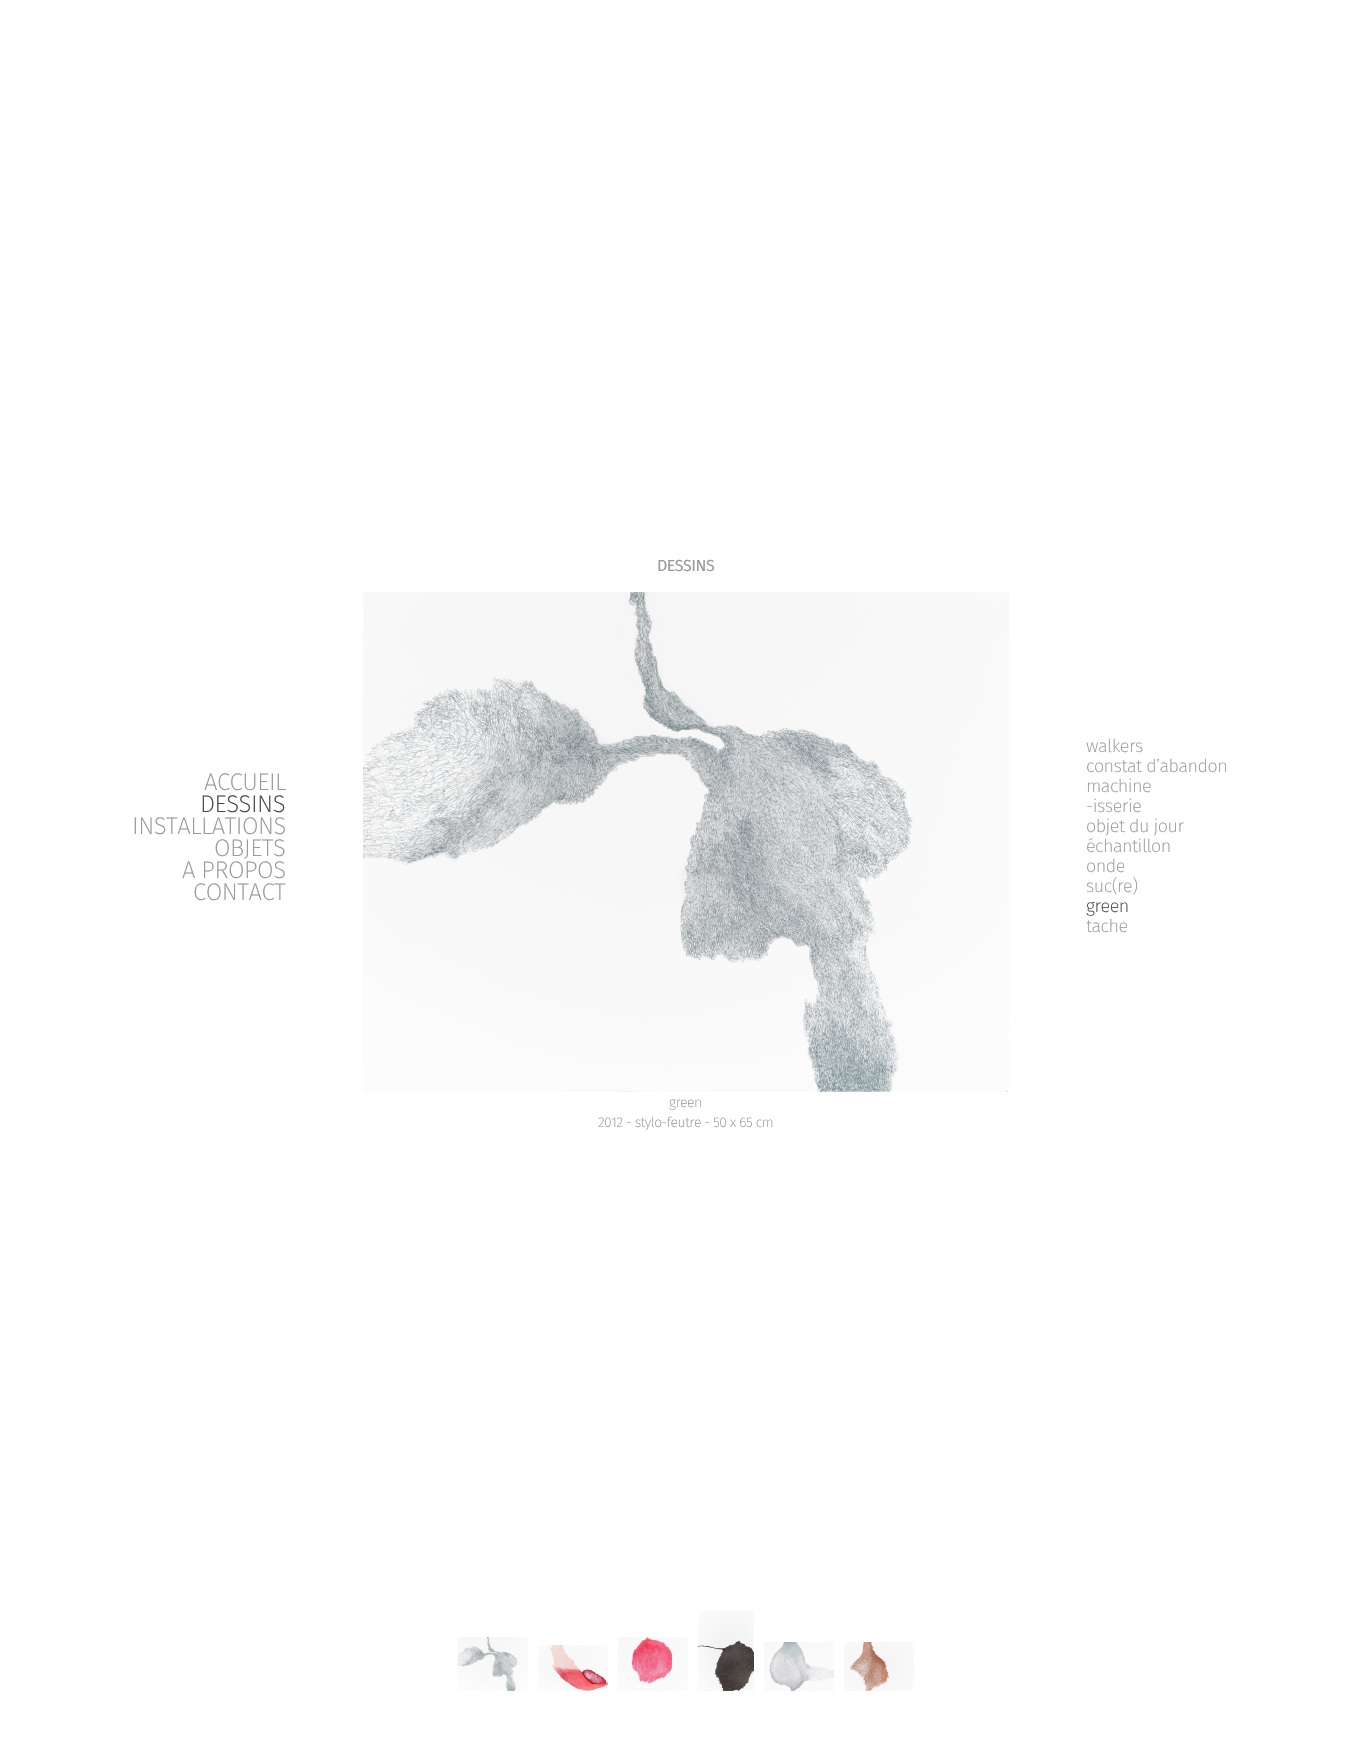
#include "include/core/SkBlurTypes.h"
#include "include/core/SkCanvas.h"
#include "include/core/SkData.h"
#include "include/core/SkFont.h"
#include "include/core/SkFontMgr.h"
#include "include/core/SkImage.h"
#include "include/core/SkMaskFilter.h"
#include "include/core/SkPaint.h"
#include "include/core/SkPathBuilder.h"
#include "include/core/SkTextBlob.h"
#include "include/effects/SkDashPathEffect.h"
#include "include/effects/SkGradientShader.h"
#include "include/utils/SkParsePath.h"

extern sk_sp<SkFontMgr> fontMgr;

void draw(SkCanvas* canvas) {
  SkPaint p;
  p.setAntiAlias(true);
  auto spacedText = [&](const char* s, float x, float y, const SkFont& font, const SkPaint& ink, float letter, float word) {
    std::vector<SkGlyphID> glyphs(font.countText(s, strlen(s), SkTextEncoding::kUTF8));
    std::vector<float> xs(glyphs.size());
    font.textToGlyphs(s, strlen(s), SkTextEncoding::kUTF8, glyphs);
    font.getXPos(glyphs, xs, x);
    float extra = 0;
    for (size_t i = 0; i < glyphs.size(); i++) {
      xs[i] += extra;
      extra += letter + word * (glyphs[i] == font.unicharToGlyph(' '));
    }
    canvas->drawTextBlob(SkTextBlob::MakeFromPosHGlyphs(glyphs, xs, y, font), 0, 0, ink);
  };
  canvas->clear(SK_ColorWHITE);
  canvas->drawImageRect(SkImages::DeferredFromEncodedData(SkData::MakeFromFileName("images/1.png")), SkRect::MakeLTRB(363, 592, 1009, 1092), SkSamplingOptions());
  canvas->drawImageRect(SkImages::DeferredFromEncodedData(SkData::MakeFromFileName("images/2.png")), SkRect::MakeLTRB(458, 1637, 528, 1691), SkSamplingOptions());
  canvas->drawImageRect(SkImages::DeferredFromEncodedData(SkData::MakeFromFileName("images/3.png")), SkRect::MakeLTRB(538, 1645, 608, 1691), SkSamplingOptions());
  canvas->drawImageRect(SkImages::DeferredFromEncodedData(SkData::MakeFromFileName("images/4.png")), SkRect::MakeLTRB(618, 1637, 688, 1691), SkSamplingOptions());
  canvas->drawImageRect(SkImages::DeferredFromEncodedData(SkData::MakeFromFileName("images/5.png")), SkRect::MakeLTRB(698, 1611, 754, 1691), SkSamplingOptions());
  canvas->drawImageRect(SkImages::DeferredFromEncodedData(SkData::MakeFromFileName("images/6.png")), SkRect::MakeLTRB(764, 1642, 834, 1691), SkSamplingOptions());
  canvas->drawImageRect(SkImages::DeferredFromEncodedData(SkData::MakeFromFileName("images/7.png")), SkRect::MakeLTRB(844, 1642, 914, 1691), SkSamplingOptions());
  SkFont font1(fontMgr->matchFamilyStyle("Fira Sans", SkFontStyle(200, SkFontStyle::kNormal_Width, SkFontStyle::kUpright_Slant)), 24);
  font1.setSubpixel(true);
  p.setColor(SkColorSetRGB(153, 153, 153));
  spacedText("ACCUEIL", 204, 790, font1, p, -0.5f, 0);
  p.setColor(SkColorSetRGB(68, 68, 68));
  spacedText("DESSINS", 200, 812, font1, p, -0.5f, 0);
  p.setColor(SkColorSetRGB(153, 153, 153));
  spacedText("INSTALLATIONS", 132, 834, font1, p, -0.5f, 0);
  spacedText("OBJETS", 214, 856, font1, p, -0.5f, 0);
  spacedText("A PROPOS", 182, 878, font1, p, -0.5f, 0);
  spacedText("CONTACT", 193, 900, font1, p, -0.5f, 0);
  SkFont font2(fontMgr->matchFamilyStyle("Fira Sans", SkFontStyle::Normal()), 16);
  font2.setSubpixel(true);
  spacedText("DESSINS", 657, 571, font2, p, -0.5f, 0);
  SkFont font3(fontMgr->matchFamilyStyle("Fira Sans", SkFontStyle(200, SkFontStyle::kNormal_Width, SkFontStyle::kUpright_Slant)), 14);
  font3.setSubpixel(true);
  spacedText("green", 669, 1107, font3, p, -0.5f, 0);
  spacedText("2012 - stylo-feutre - 50 x 65 cm", 598, 1127, font3, p, -0.5f, 0);
  SkFont font4(fontMgr->matchFamilyStyle("Fira Sans", SkFontStyle(200, SkFontStyle::kNormal_Width, SkFontStyle::kUpright_Slant)), 18);
  font4.setSubpixel(true);
  spacedText("walkers", 1086, 752, font4, p, -0.5f, 0);
  spacedText("constat d’abandon", 1086, 772, font4, p, -0.5f, 0);
  spacedText("machine", 1086, 792, font4, p, -0.5f, 0);
  spacedText("-isserie", 1086, 812, font4, p, -0.5f, 0);
  spacedText("objet du jour", 1086, 832, font4, p, -0.5f, 0);
  spacedText("échantillon", 1086, 852, font4, p, -0.5f, 0);
  spacedText("onde", 1086, 872, font4, p, -0.5f, 0);
  spacedText("suc(re)", 1086, 892, font4, p, -0.5f, 0);
  p.setColor(SkColorSetRGB(68, 68, 68));
  spacedText("green", 1086, 912, font4, p, -0.5f, 0);
  p.setColor(SkColorSetRGB(153, 153, 153));
  spacedText("tache", 1086, 932, font4, p, -0.5f, 0);
}
